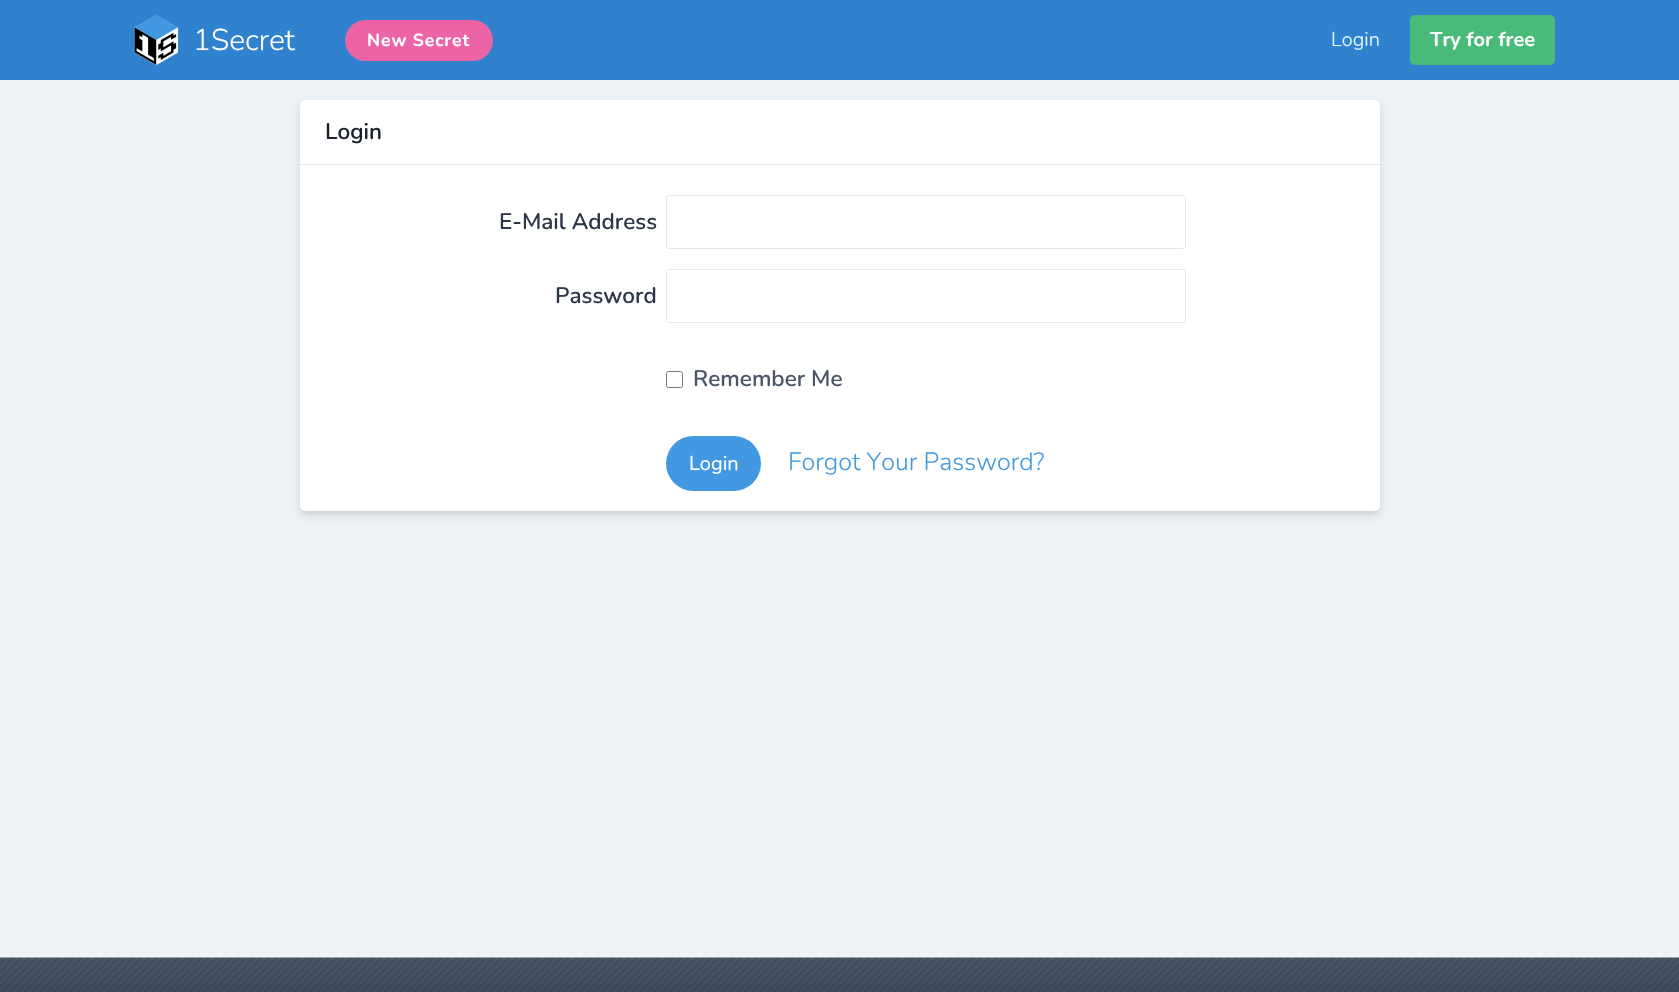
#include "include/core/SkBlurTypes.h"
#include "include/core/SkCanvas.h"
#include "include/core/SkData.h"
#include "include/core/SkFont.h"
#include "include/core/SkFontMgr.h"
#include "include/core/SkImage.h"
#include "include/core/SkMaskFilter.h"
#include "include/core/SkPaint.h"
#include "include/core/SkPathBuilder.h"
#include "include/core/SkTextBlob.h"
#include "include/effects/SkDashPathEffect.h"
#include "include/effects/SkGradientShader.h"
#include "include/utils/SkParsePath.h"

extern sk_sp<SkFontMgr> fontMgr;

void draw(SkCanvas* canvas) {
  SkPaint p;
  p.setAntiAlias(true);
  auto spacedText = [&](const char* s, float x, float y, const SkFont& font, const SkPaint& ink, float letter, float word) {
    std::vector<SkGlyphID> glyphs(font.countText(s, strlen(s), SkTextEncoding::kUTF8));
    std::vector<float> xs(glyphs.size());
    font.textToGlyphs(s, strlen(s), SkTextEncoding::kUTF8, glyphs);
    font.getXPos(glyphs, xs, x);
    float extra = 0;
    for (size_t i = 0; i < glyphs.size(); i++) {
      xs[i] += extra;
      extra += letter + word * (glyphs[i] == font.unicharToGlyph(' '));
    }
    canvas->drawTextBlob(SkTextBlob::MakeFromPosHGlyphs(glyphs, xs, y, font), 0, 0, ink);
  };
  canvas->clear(SkColorSetRGB(237, 242, 247));
  p.setColor(SkColorSetRGB(49, 130, 206));
  canvas->drawRect(SkRect::MakeLTRB(0, 0, 1679, 80), p);
  canvas->drawImageRect(SkImages::DeferredFromEncodedData(SkData::MakeFromFileName("images/1.png")), SkRect::MakeLTRB(134, 14, 179, 66), SkSamplingOptions());
  p.setColor(SkColorSetRGB(237, 100, 166));
  canvas->drawRoundRect(SkRect::MakeLTRB(345, 20, 493, 61), 20.5f, 20.5f, p);
  p.setColor(SkColorSetRGB(72, 187, 120));
  canvas->drawRoundRect(SkRect::MakeLTRB(1410, 15, 1555, 65), 5, 5, p);
  p.setColor(SkColorSetARGB(15, 0, 0, 0));
  p.setMaskFilter(SkMaskFilter::MakeBlur(kNormal_SkBlurStyle, 2.5f));
  canvas->drawRoundRect(SkRect::MakeLTRB(301, 104, 1379, 513), 4, 4, p);
  p.setMaskFilter(nullptr);
  p.setColor(SkColorSetARGB(26, 0, 0, 0));
  p.setMaskFilter(SkMaskFilter::MakeBlur(kNormal_SkBlurStyle, 4));
  canvas->drawRoundRect(SkRect::MakeLTRB(301, 106, 1379, 515), 4, 4, p);
  p.setMaskFilter(nullptr);
  p.setColor(SK_ColorWHITE);
  canvas->drawRoundRect(SkRect::MakeLTRB(300, 100, 1380, 511), 5, 5, p);
  p.setColor(SkColorSetRGB(226, 232, 240));
  canvas->drawRect(SkRect::MakeLTRB(300, 164, 1380, 165), p);
  p.setStyle(SkPaint::kStroke_Style);
  p.setStrokeWidth(1);
  canvas->drawRoundRect(SkRect::MakeLTRB(666.5f, 195.5f, 1185.5f, 248.5f), 2, 2, p);
  canvas->drawRoundRect(SkRect::MakeLTRB(666.5f, 269.5f, 1185.5f, 322.5f), 2, 2, p);
  p.setColor(SkColorSetRGB(118, 118, 118));
  canvas->drawRoundRect(SkRect::MakeLTRB(666.5f, 371.5f, 682.5f, 387.5f), 2, 2, p);
  p.setStyle(SkPaint::kFill_Style);
  p.setColor(SkColorSetRGB(66, 153, 225));
  canvas->drawRoundRect(SkRect::MakeLTRB(666, 436, 761, 491), 27.5f, 27.5f, p);
  canvas->drawImageRect(SkImages::DeferredFromEncodedData(SkData::MakeFromFileName("images/2.png")), SkRect::MakeLTRB(0, 957, 1679, 992), SkSamplingOptions());
  SkFont font1(fontMgr->matchFamilyStyle("Nunito", SkFontStyle(300, SkFontStyle::kNormal_Width, SkFontStyle::kUpright_Slant)), 30);
  font1.setSubpixel(true);
  p.setColor(SK_ColorWHITE);
  canvas->drawString("1Secret", 193, 50, font1, p);
  SkFont font2(fontMgr->matchFamilyStyle("Nunito", SkFontStyle::Bold()), 17.5f);
  font2.setSubpixel(true);
  spacedText("New Secret", 367, 46, font2, p, 0.9f, 0);
  SkFont font3(fontMgr->matchFamilyStyle("Nunito", SkFontStyle(300, SkFontStyle::kNormal_Width, SkFontStyle::kUpright_Slant)), 20);
  font3.setSubpixel(true);
  p.setColor(SkColorSetRGB(235, 248, 255));
  canvas->drawString("Login", 1331, 46, font3, p);
  SkFont font4(fontMgr->matchFamilyStyle("Nunito", SkFontStyle::Bold()), 20);
  font4.setSubpixel(true);
  p.setColor(SK_ColorWHITE);
  canvas->drawString("Try for free", 1430, 46, font4, p);
  SkFont font5(fontMgr->matchFamilyStyle("Nunito", SkFontStyle(600, SkFontStyle::kNormal_Width, SkFontStyle::kUpright_Slant)), 22.5f);
  font5.setSubpixel(true);
  p.setColor(SkColorSetRGB(26, 32, 44));
  canvas->drawString("Login", 325, 139, font5, p);
  p.setColor(SkColorSetRGB(45, 55, 72));
  canvas->drawString("E-Mail Address", 499, 229, font5, p);
  canvas->drawString("Password", 555, 303, font5, p);
  p.setColor(SkColorSetRGB(74, 85, 104));
  canvas->drawString("Remember Me", 693, 386, font5, p);
  SkFont font6(fontMgr->matchFamilyStyle("Nunito", SkFontStyle::Normal()), 20);
  font6.setSubpixel(true);
  p.setColor(SK_ColorWHITE);
  canvas->drawString("Login", 689, 470, font6, p);
  SkFont font7(fontMgr->matchFamilyStyle("Nunito", SkFontStyle(300, SkFontStyle::kNormal_Width, SkFontStyle::kUpright_Slant)), 25);
  font7.setSubpixel(true);
  p.setColor(SkColorSetRGB(66, 153, 225));
  canvas->drawString("Forgot Your Password?", 788, 470, font7, p);
}
